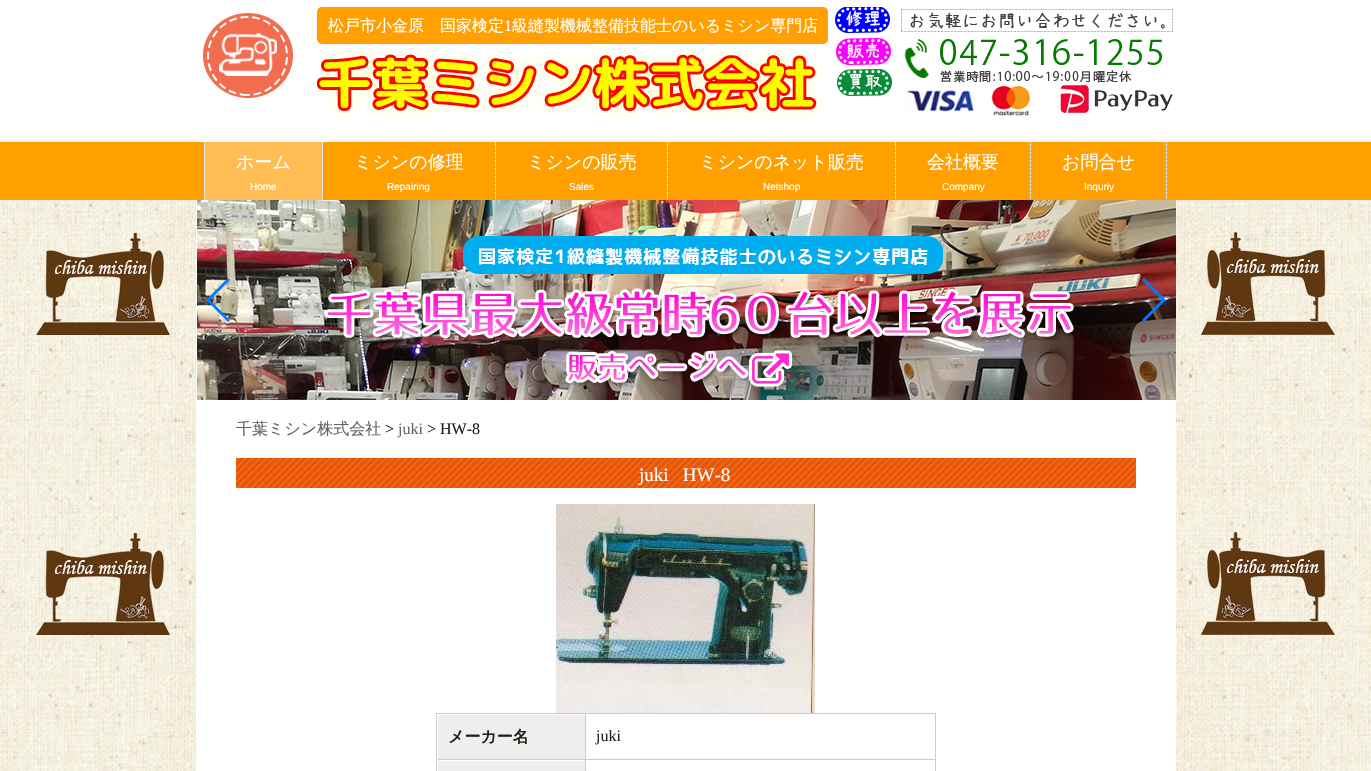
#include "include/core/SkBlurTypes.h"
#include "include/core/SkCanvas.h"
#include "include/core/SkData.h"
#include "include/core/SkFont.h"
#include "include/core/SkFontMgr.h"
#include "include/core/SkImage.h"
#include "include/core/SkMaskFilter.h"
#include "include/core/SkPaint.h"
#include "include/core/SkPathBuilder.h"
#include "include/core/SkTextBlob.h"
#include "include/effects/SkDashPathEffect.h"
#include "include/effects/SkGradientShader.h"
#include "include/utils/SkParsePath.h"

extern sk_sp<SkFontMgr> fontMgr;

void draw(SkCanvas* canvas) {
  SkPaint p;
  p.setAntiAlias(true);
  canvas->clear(SK_ColorWHITE);
  canvas->drawImageRect(SkImages::DeferredFromEncodedData(SkData::MakeFromFileName("images/1.png")), SkRect::MakeLTRB(0, 200, 1371, 771), SkSamplingOptions());
  canvas->drawImageRect(SkImages::DeferredFromEncodedData(SkData::MakeFromFileName("images/2.png")), SkRect::MakeLTRB(203, 13, 299, 98), SkSamplingOptions());
  p.setColor(SkColorSetRGB(255, 159, 0));
  canvas->drawRoundRect(SkRect::MakeLTRB(317, 7, 828, 44), 5, 5, p);
  canvas->drawImageRect(SkImages::DeferredFromEncodedData(SkData::MakeFromFileName("images/3.png")), SkRect::MakeLTRB(317, 47, 823, 118), SkSamplingOptions());
  canvas->drawImageRect(SkImages::DeferredFromEncodedData(SkData::MakeFromFileName("images/4.png")), SkRect::MakeLTRB(835, 7, 892, 96), SkSamplingOptions());
  canvas->drawImageRect(SkImages::DeferredFromEncodedData(SkData::MakeFromFileName("images/5.png")), SkRect::MakeLTRB(901, 9, 1173, 116), SkSamplingOptions());
  canvas->drawRect(SkRect::MakeLTRB(0, 142, 1371, 200), p);
  p.setColor(SkColorSetRGB(255, 189, 84));
  canvas->drawRect(SkRect::MakeLTRB(204, 142, 323, 200), p);
  p.setStyle(SkPaint::kStroke_Style);
  p.setStrokeWidth(1);
  p.setColor(SK_ColorWHITE);
  p.setPathEffect(SkDashPathEffect::Make({{1, 1}}, 0));
  canvas->drawPath(SkPathBuilder().moveTo(322.5f, 142).lineTo(322.5f, 200).detach(), p);
  p.setPathEffect(nullptr);
  p.setPathEffect(SkDashPathEffect::Make({{1, 1}}, 0));
  canvas->drawPath(SkPathBuilder().moveTo(204.5f, 142).lineTo(204.5f, 200).detach(), p);
  p.setPathEffect(nullptr);
  p.setPathEffect(SkDashPathEffect::Make({{1, 1}}, 0));
  canvas->drawPath(SkPathBuilder().moveTo(495.5f, 142).lineTo(495.5f, 200).detach(), p);
  p.setPathEffect(nullptr);
  p.setPathEffect(SkDashPathEffect::Make({{1, 1}}, 0));
  canvas->drawPath(SkPathBuilder().moveTo(667.5f, 142).lineTo(667.5f, 200).detach(), p);
  p.setPathEffect(nullptr);
  p.setPathEffect(SkDashPathEffect::Make({{1, 1}}, 0));
  canvas->drawPath(SkPathBuilder().moveTo(895.5f, 142).lineTo(895.5f, 200).detach(), p);
  p.setPathEffect(nullptr);
  p.setPathEffect(SkDashPathEffect::Make({{1, 1}}, 0));
  canvas->drawPath(SkPathBuilder().moveTo(1030.5f, 142).lineTo(1030.5f, 200).detach(), p);
  p.setPathEffect(nullptr);
  p.setPathEffect(SkDashPathEffect::Make({{1, 1}}, 0));
  canvas->drawPath(SkPathBuilder().moveTo(1166.5f, 142).lineTo(1166.5f, 200).detach(), p);
  p.setPathEffect(nullptr);
  canvas->drawImageRect(SkImages::DeferredFromEncodedData(SkData::MakeFromFileName("images/6.png")), SkRect::MakeLTRB(36, 232, 1335, 635), SkSamplingOptions());
  canvas->drawImageRect(SkImages::DeferredFromEncodedData(SkData::MakeFromFileName("images/7.png")), SkRect::MakeLTRB(196, 200, 1176, 400), SkSamplingOptions());
  p.setStyle(SkPaint::kFill_Style);
  p.setColor(SkColorSetRGB(0, 122, 255));
  canvas->drawPath(SkPathBuilder().moveTo(206, 300).lineTo(228, 278).lineTo(230, 280).lineTo(210, 300).lineTo(230, 320).lineTo(228, 322).close().detach(), p);
  canvas->drawPath(SkPathBuilder().moveTo(1166, 300).lineTo(1144, 322).lineTo(1142, 320).lineTo(1162, 300).lineTo(1142, 280).lineTo(1144, 278).close().detach(), p);
  p.setColor(SK_ColorWHITE);
  canvas->drawRect(SkRect::MakeLTRB(196, 400, 1176, 771), p);
  canvas->drawImageRect(SkImages::DeferredFromEncodedData(SkData::MakeFromFileName("images/8.png")), SkRect::MakeLTRB(236, 458, 1136, 488), SkSamplingOptions());
  canvas->drawImageRect(SkImages::DeferredFromEncodedData(SkData::MakeFromFileName("images/9.png")), SkRect::MakeLTRB(556, 504, 815, 713), SkSamplingOptions());
  p.setColor(SkColorSetRGB(204, 204, 204));
  canvas->drawRect(SkRect::MakeLTRB(436, 713, 936, 714), p);
  canvas->drawRect(SkRect::MakeLTRB(436, 713, 437, 771), p);
  p.setColor(SkColorSetRGB(238, 238, 238));
  canvas->drawRect(SkRect::MakeLTRB(438, 715, 585, 759), p);
  p.setColor(SkColorSetRGB(204, 204, 204));
  canvas->drawRect(SkRect::MakeLTRB(585, 714, 586, 771), p);
  canvas->drawRect(SkRect::MakeLTRB(437, 759, 586, 760), p);
  p.setColor(SK_ColorWHITE);
  canvas->drawRect(SkRect::MakeLTRB(437, 759, 438, 760), p);
  p.setColor(SkColorSetRGB(204, 204, 204));
  canvas->drawRect(SkRect::MakeLTRB(935, 714, 936, 771), p);
  canvas->drawRect(SkRect::MakeLTRB(586, 759, 936, 760), p);
  p.setColor(SkColorSetRGB(238, 238, 238));
  canvas->drawRect(SkRect::MakeLTRB(438, 761, 585, 771), p);
  SkFont font1(fontMgr->matchFamilyStyle("WenQuanYi Zen Hei", SkFontStyle(500, SkFontStyle::kNormal_Width, SkFontStyle::kUpright_Slant)), 16);
  font1.setSubpixel(true);
  p.setColor(SK_ColorWHITE);
  canvas->drawString("松戸市小金原　国家検定", 328, 31, font1, p);
  SkFont font2(fontMgr->matchFamilyStyle("Liberation Serif", SkFontStyle::Normal()), 16);
  font2.setSubpixel(true);
  canvas->drawString("1", 504, 31, font2, p);
  canvas->drawString("級縫製機械整備技能士のいるミシン専門店", 512, 31, font1, p);
  SkFont font3(fontMgr->matchFamilyStyle("WenQuanYi Zen Hei", SkFontStyle(500, SkFontStyle::kNormal_Width, SkFontStyle::kUpright_Slant)), 18);
  font3.setSubpixel(true);
  canvas->drawString("ホーム", 236, 168, font3, p);
  SkFont font4(fontMgr->matchFamilyStyle("Liberation Sans", SkFontStyle::Normal()), 10);
  font4.setSubpixel(true);
  canvas->drawString("Home", 250, 190, font4, p);
  canvas->drawString("ミシンの修理", 354, 168, font3, p);
  canvas->drawString("Repairing", 387, 190, font4, p);
  canvas->drawString("ミシンの販売", 527, 168, font3, p);
  canvas->drawString("Sales", 569, 190, font4, p);
  canvas->drawString("ミシンのネット販売", 699, 168, font3, p);
  canvas->drawString("Netshop", 763, 190, font4, p);
  canvas->drawString("会社概要", 927, 168, font3, p);
  canvas->drawString("Company", 942, 190, font4, p);
  canvas->drawString("お問合せ", 1062, 168, font3, p);
  canvas->drawString("Inquriy", 1084, 190, font4, p);
  p.setColor(SkColorSetRGB(99, 99, 99));
  canvas->drawString("千葉ミシン株式会社", 236, 434, font1, p);
  p.setColor(SkColorSetRGB(37, 29, 18));
  canvas->drawString(">", 385, 434, font2, p);
  p.setColor(SkColorSetRGB(99, 99, 99));
  canvas->drawString("juki", 398, 434, font2, p);
  p.setColor(SkColorSetRGB(37, 29, 18));
  canvas->drawString("> HW-8", 427, 434, font2, p);
  SkFont font5(fontMgr->matchFamilyStyle("Liberation Serif", SkFontStyle::Normal()), 19);
  font5.setSubpixel(true);
  p.setColor(SK_ColorWHITE);
  canvas->drawString("juki   HW-8", 639, 481, font5, p);
  SkFont font6(fontMgr->matchFamilyStyle("WenQuanYi Zen Hei", SkFontStyle::Bold()), 16);
  font6.setSubpixel(true);
  p.setColor(SkColorSetRGB(37, 29, 18));
  canvas->drawString("メーカー名", 448, 742, font6, p);
  canvas->drawString("juki", 596, 741, font2, p);
}
